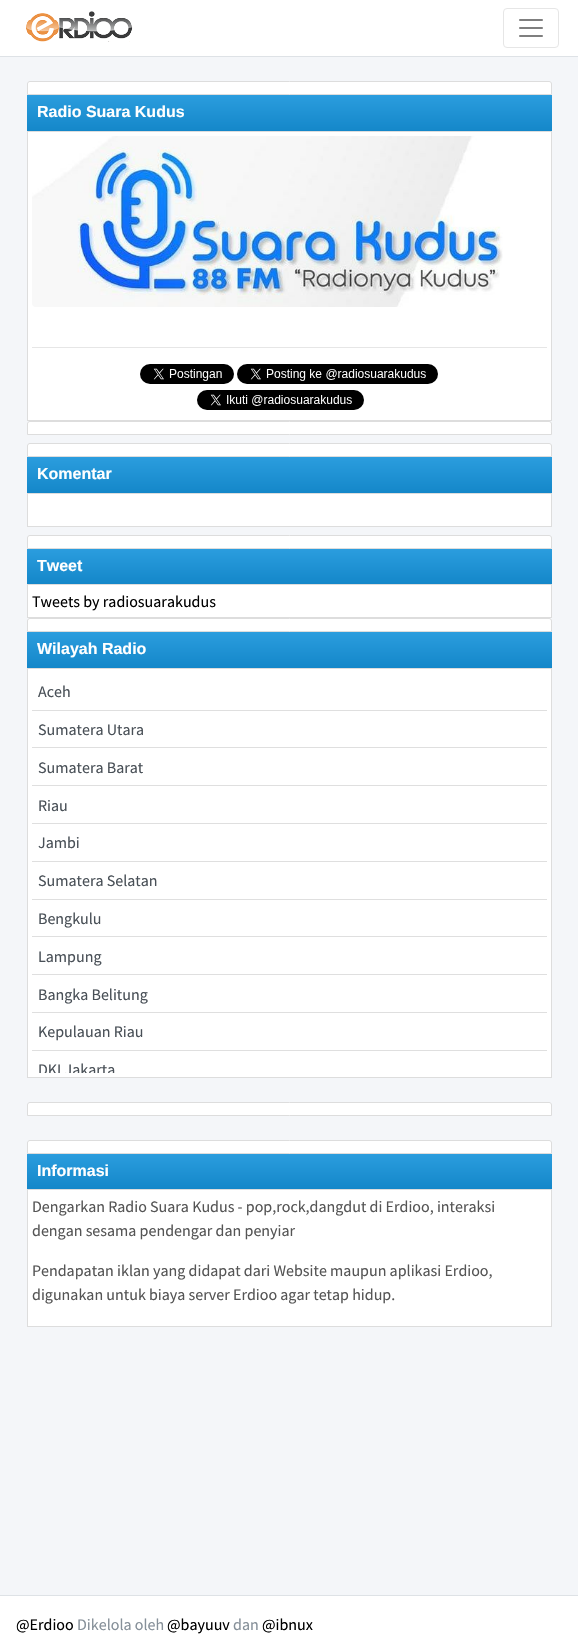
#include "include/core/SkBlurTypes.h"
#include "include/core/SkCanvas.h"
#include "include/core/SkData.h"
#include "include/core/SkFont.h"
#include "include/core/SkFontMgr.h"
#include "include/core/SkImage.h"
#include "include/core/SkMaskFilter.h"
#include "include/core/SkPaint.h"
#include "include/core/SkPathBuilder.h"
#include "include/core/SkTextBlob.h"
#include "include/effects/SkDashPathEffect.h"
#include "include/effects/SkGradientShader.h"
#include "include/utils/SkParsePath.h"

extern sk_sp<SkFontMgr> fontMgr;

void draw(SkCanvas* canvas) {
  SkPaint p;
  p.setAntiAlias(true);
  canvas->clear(SK_ColorWHITE);
  p.setColor(SkColorSetRGB(222, 226, 230));
  canvas->drawRect(SkRect::MakeLTRB(0, 56, 578, 57), p);
  canvas->drawImageRect(SkImages::DeferredFromEncodedData(SkData::MakeFromFileName("images/1.png")), SkRect::MakeLTRB(26, 11, 133, 42), SkSamplingOptions());
  p.setStyle(SkPaint::kStroke_Style);
  p.setStrokeWidth(1);
  p.setColor(SkColorSetRGB(230, 230, 230));
  canvas->drawRoundRect(SkRect::MakeLTRB(503.5f, 8.5f, 558.5f, 47.5f), 3.5f, 3.5f, p);
  canvas->drawImageRect(SkImages::DeferredFromEncodedData(SkData::MakeFromFileName("images/2.png")), SkRect::MakeLTRB(519, 19, 543, 37), SkSamplingOptions());
  p.setStyle(SkPaint::kFill_Style);
  p.setColor(SkColorSetRGB(244, 246, 249));
  canvas->drawRect(SkRect::MakeLTRB(0, 57, 578, 1595), p);
  p.setColor(SK_ColorWHITE);
  canvas->drawPath(SkPathBuilder().moveTo(30, 81.5f).lineTo(549, 81.5f).cubicTo(550.5f, 81.5f, 551.5f, 82.5f, 551.5f, 84).lineTo(551.5f, 94.5f).lineTo(27.5f, 94.5f).lineTo(27.5f, 84).cubicTo(27.5f, 82.5f, 28.5f, 81.5f, 30, 81.5f).close().detach(), p);
  p.setStyle(SkPaint::kStroke_Style);
  p.setColor(SkColorSetRGB(221, 221, 221));
  canvas->drawPath(SkPathBuilder().moveTo(30, 81.5f).lineTo(549, 81.5f).cubicTo(550.5f, 81.5f, 551.5f, 82.5f, 551.5f, 84).lineTo(551.5f, 94.5f).lineTo(27.5f, 94.5f).lineTo(27.5f, 84).cubicTo(27.5f, 82.5f, 28.5f, 81.5f, 30, 81.5f).close().detach(), p);
  p.setStyle(SkPaint::kFill_Style);
  {
    const SkColor colors[] = {SkColorSetRGB(43, 157, 222), SkColorSetRGB(20, 135, 201)};
    const float stops[] = {0, 1};
    const SkPoint ends[] = {{290, 95}, {290, 131}};
    p.setShader(SkGradientShader::MakeLinear(ends, colors, stops, 2, SkTileMode::kClamp));
    p.setAlpha(255);
  }
  canvas->drawRect(SkRect::MakeLTRB(27, 95, 552, 131), p);
  p.setShader(nullptr);
  p.setColor(SK_ColorWHITE);
  canvas->drawRect(SkRect::MakeLTRB(27.5f, 131.5f, 551.5f, 420.5f), p);
  p.setStyle(SkPaint::kStroke_Style);
  p.setColor(SkColorSetRGB(221, 221, 221));
  canvas->drawRect(SkRect::MakeLTRB(27.5f, 131.5f, 551.5f, 420.5f), p);
  canvas->drawImageRect(SkImages::DeferredFromEncodedData(SkData::MakeFromFileName("images/3.png")), SkRect::MakeLTRB(32, 136, 503, 307), SkSamplingOptions());
  p.setStyle(SkPaint::kFill_Style);
  p.setColor(SkColorSetRGB(230, 230, 230));
  canvas->drawRect(SkRect::MakeLTRB(32, 347, 547, 348), p);
  canvas->drawImageRect(SkImages::DeferredFromEncodedData(SkData::MakeFromFileName("images/4.png")), SkRect::MakeLTRB(140, 364, 234, 384), SkSamplingOptions());
  canvas->drawImageRect(SkImages::DeferredFromEncodedData(SkData::MakeFromFileName("images/5.png")), SkRect::MakeLTRB(237, 364, 438, 384), SkSamplingOptions());
  canvas->drawImageRect(SkImages::DeferredFromEncodedData(SkData::MakeFromFileName("images/6.png")), SkRect::MakeLTRB(197, 390, 364, 410), SkSamplingOptions());
  p.setColor(SK_ColorWHITE);
  canvas->drawPath(SkPathBuilder().moveTo(30, 421.5f).lineTo(549, 421.5f).cubicTo(550.5f, 421.5f, 551.5f, 422.5f, 551.5f, 424).lineTo(551.5f, 434.5f).lineTo(27.5f, 434.5f).lineTo(27.5f, 424).cubicTo(27.5f, 422.5f, 28.5f, 421.5f, 30, 421.5f).close().detach(), p);
  p.setStyle(SkPaint::kStroke_Style);
  p.setColor(SkColorSetRGB(221, 221, 221));
  canvas->drawPath(SkPathBuilder().moveTo(30, 421.5f).lineTo(549, 421.5f).cubicTo(550.5f, 421.5f, 551.5f, 422.5f, 551.5f, 424).lineTo(551.5f, 434.5f).lineTo(27.5f, 434.5f).lineTo(27.5f, 424).cubicTo(27.5f, 422.5f, 28.5f, 421.5f, 30, 421.5f).close().detach(), p);
  p.setStyle(SkPaint::kFill_Style);
  p.setColor(SK_ColorWHITE);
  canvas->drawPath(SkPathBuilder().moveTo(30, 443.5f).lineTo(549, 443.5f).cubicTo(550.5f, 443.5f, 551.5f, 444.5f, 551.5f, 446).lineTo(551.5f, 456.5f).lineTo(27.5f, 456.5f).lineTo(27.5f, 446).cubicTo(27.5f, 444.5f, 28.5f, 443.5f, 30, 443.5f).close().detach(), p);
  p.setStyle(SkPaint::kStroke_Style);
  p.setColor(SkColorSetRGB(221, 221, 221));
  canvas->drawPath(SkPathBuilder().moveTo(30, 443.5f).lineTo(549, 443.5f).cubicTo(550.5f, 443.5f, 551.5f, 444.5f, 551.5f, 446).lineTo(551.5f, 456.5f).lineTo(27.5f, 456.5f).lineTo(27.5f, 446).cubicTo(27.5f, 444.5f, 28.5f, 443.5f, 30, 443.5f).close().detach(), p);
  p.setStyle(SkPaint::kFill_Style);
  {
    const SkColor colors[] = {SkColorSetRGB(43, 157, 222), SkColorSetRGB(20, 135, 201)};
    const float stops[] = {0, 1};
    const SkPoint ends[] = {{290, 457}, {290, 493}};
    p.setShader(SkGradientShader::MakeLinear(ends, colors, stops, 2, SkTileMode::kClamp));
    p.setAlpha(255);
  }
  canvas->drawRect(SkRect::MakeLTRB(27, 457, 552, 493), p);
  p.setShader(nullptr);
  p.setColor(SK_ColorWHITE);
  canvas->drawRect(SkRect::MakeLTRB(27.5f, 493.5f, 551.5f, 526.5f), p);
  p.setStyle(SkPaint::kStroke_Style);
  p.setColor(SkColorSetRGB(221, 221, 221));
  canvas->drawRect(SkRect::MakeLTRB(27.5f, 493.5f, 551.5f, 526.5f), p);
  p.setStyle(SkPaint::kFill_Style);
  p.setColor(SK_ColorWHITE);
  canvas->drawPath(SkPathBuilder().moveTo(30, 535.5f).lineTo(549, 535.5f).cubicTo(550.5f, 535.5f, 551.5f, 536.5f, 551.5f, 538).lineTo(551.5f, 548.5f).lineTo(27.5f, 548.5f).lineTo(27.5f, 538).cubicTo(27.5f, 536.5f, 28.5f, 535.5f, 30, 535.5f).close().detach(), p);
  p.setStyle(SkPaint::kStroke_Style);
  p.setColor(SkColorSetRGB(221, 221, 221));
  canvas->drawPath(SkPathBuilder().moveTo(30, 535.5f).lineTo(549, 535.5f).cubicTo(550.5f, 535.5f, 551.5f, 536.5f, 551.5f, 538).lineTo(551.5f, 548.5f).lineTo(27.5f, 548.5f).lineTo(27.5f, 538).cubicTo(27.5f, 536.5f, 28.5f, 535.5f, 30, 535.5f).close().detach(), p);
  p.setStyle(SkPaint::kFill_Style);
  {
    const SkColor colors[] = {SkColorSetRGB(43, 157, 222), SkColorSetRGB(20, 135, 201)};
    const float stops[] = {0, 1};
    const SkPoint ends[] = {{290, 549}, {290, 584}};
    p.setShader(SkGradientShader::MakeLinear(ends, colors, stops, 2, SkTileMode::kClamp));
    p.setAlpha(255);
  }
  canvas->drawRect(SkRect::MakeLTRB(27, 549, 552, 584), p);
  p.setShader(nullptr);
  p.setColor(SK_ColorWHITE);
  canvas->drawRect(SkRect::MakeLTRB(27.5f, 584.5f, 551.5f, 617.5f), p);
  p.setStyle(SkPaint::kStroke_Style);
  p.setColor(SkColorSetRGB(221, 221, 221));
  canvas->drawRect(SkRect::MakeLTRB(27.5f, 584.5f, 551.5f, 617.5f), p);
  p.setStyle(SkPaint::kFill_Style);
  p.setColor(SK_ColorWHITE);
  canvas->drawPath(SkPathBuilder().moveTo(30, 618.5f).lineTo(549, 618.5f).cubicTo(550.5f, 618.5f, 551.5f, 619.5f, 551.5f, 621).lineTo(551.5f, 631.5f).lineTo(27.5f, 631.5f).lineTo(27.5f, 621).cubicTo(27.5f, 619.5f, 28.5f, 618.5f, 30, 618.5f).close().detach(), p);
  p.setStyle(SkPaint::kStroke_Style);
  p.setColor(SkColorSetRGB(221, 221, 221));
  canvas->drawPath(SkPathBuilder().moveTo(30, 618.5f).lineTo(549, 618.5f).cubicTo(550.5f, 618.5f, 551.5f, 619.5f, 551.5f, 621).lineTo(551.5f, 631.5f).lineTo(27.5f, 631.5f).lineTo(27.5f, 621).cubicTo(27.5f, 619.5f, 28.5f, 618.5f, 30, 618.5f).close().detach(), p);
  p.setStyle(SkPaint::kFill_Style);
  {
    const SkColor colors[] = {SkColorSetRGB(43, 157, 222), SkColorSetRGB(20, 135, 201)};
    const float stops[] = {0, 1};
    const SkPoint ends[] = {{290, 632}, {290, 668}};
    p.setShader(SkGradientShader::MakeLinear(ends, colors, stops, 2, SkTileMode::kClamp));
    p.setAlpha(255);
  }
  canvas->drawRect(SkRect::MakeLTRB(27, 632, 552, 668), p);
  p.setShader(nullptr);
  p.setColor(SK_ColorWHITE);
  canvas->drawRect(SkRect::MakeLTRB(27.5f, 668.5f, 551.5f, 1077.5f), p);
  p.setStyle(SkPaint::kStroke_Style);
  p.setColor(SkColorSetRGB(221, 221, 221));
  canvas->drawRect(SkRect::MakeLTRB(27.5f, 668.5f, 551.5f, 1077.5f), p);
  p.setStyle(SkPaint::kFill_Style);
  p.setColor(SkColorSetRGB(223, 223, 223));
  canvas->drawRect(SkRect::MakeLTRB(32, 710, 547, 711), p);
  canvas->drawRect(SkRect::MakeLTRB(32, 747, 547, 748), p);
  canvas->drawRect(SkRect::MakeLTRB(32, 785, 547, 786), p);
  canvas->drawRect(SkRect::MakeLTRB(32, 823, 547, 824), p);
  canvas->drawRect(SkRect::MakeLTRB(32, 861, 547, 862), p);
  canvas->drawRect(SkRect::MakeLTRB(32, 899, 547, 900), p);
  canvas->drawRect(SkRect::MakeLTRB(32, 936, 547, 937), p);
  canvas->drawRect(SkRect::MakeLTRB(32, 974, 547, 975), p);
  canvas->drawRect(SkRect::MakeLTRB(32, 1012, 547, 1013), p);
  canvas->drawRect(SkRect::MakeLTRB(32, 1050, 547, 1051), p);
  p.setColor(SK_ColorWHITE);
  canvas->drawPath(SkPathBuilder().moveTo(30, 1102.5f).lineTo(549, 1102.5f).cubicTo(550.5f, 1102.5f, 551.5f, 1103.5f, 551.5f, 1105).lineTo(551.5f, 1115.5f).lineTo(27.5f, 1115.5f).lineTo(27.5f, 1105).cubicTo(27.5f, 1103.5f, 28.5f, 1102.5f, 30, 1102.5f).close().detach(), p);
  p.setStyle(SkPaint::kStroke_Style);
  p.setColor(SkColorSetRGB(221, 221, 221));
  canvas->drawPath(SkPathBuilder().moveTo(30, 1102.5f).lineTo(549, 1102.5f).cubicTo(550.5f, 1102.5f, 551.5f, 1103.5f, 551.5f, 1105).lineTo(551.5f, 1115.5f).lineTo(27.5f, 1115.5f).lineTo(27.5f, 1105).cubicTo(27.5f, 1103.5f, 28.5f, 1102.5f, 30, 1102.5f).close().detach(), p);
  p.setStyle(SkPaint::kFill_Style);
  p.setColor(SK_ColorWHITE);
  canvas->drawPath(SkPathBuilder().moveTo(30, 1140.5f).lineTo(549, 1140.5f).cubicTo(550.5f, 1140.5f, 551.5f, 1141.5f, 551.5f, 1143).lineTo(551.5f, 1153.5f).lineTo(27.5f, 1153.5f).lineTo(27.5f, 1143).cubicTo(27.5f, 1141.5f, 28.5f, 1140.5f, 30, 1140.5f).close().detach(), p);
  p.setStyle(SkPaint::kStroke_Style);
  p.setColor(SkColorSetRGB(221, 221, 221));
  canvas->drawPath(SkPathBuilder().moveTo(30, 1140.5f).lineTo(549, 1140.5f).cubicTo(550.5f, 1140.5f, 551.5f, 1141.5f, 551.5f, 1143).lineTo(551.5f, 1153.5f).lineTo(27.5f, 1153.5f).lineTo(27.5f, 1143).cubicTo(27.5f, 1141.5f, 28.5f, 1140.5f, 30, 1140.5f).close().detach(), p);
  p.setStyle(SkPaint::kFill_Style);
  {
    const SkColor colors[] = {SkColorSetRGB(43, 157, 222), SkColorSetRGB(20, 135, 201)};
    const float stops[] = {0, 1};
    const SkPoint ends[] = {{290, 1154}, {290, 1189}};
    p.setShader(SkGradientShader::MakeLinear(ends, colors, stops, 2, SkTileMode::kClamp));
    p.setAlpha(255);
  }
  canvas->drawRect(SkRect::MakeLTRB(27, 1154, 552, 1189), p);
  p.setShader(nullptr);
  p.setColor(SK_ColorWHITE);
  canvas->drawRect(SkRect::MakeLTRB(27.5f, 1189.5f, 551.5f, 1326.5f), p);
  p.setStyle(SkPaint::kStroke_Style);
  p.setColor(SkColorSetRGB(221, 221, 221));
  canvas->drawRect(SkRect::MakeLTRB(27.5f, 1189.5f, 551.5f, 1326.5f), p);
  p.setStyle(SkPaint::kFill_Style);
  p.setColor(SkColorSetRGB(222, 226, 230));
  canvas->drawRect(SkRect::MakeLTRB(0, 1595, 578, 1596), p);
  SkFont font1(fontMgr->matchFamilyStyle("Liberation Sans", SkFontStyle::Bold()), 16);
  font1.setSubpixel(true);
  p.setColor(SK_ColorWHITE);
  canvas->drawString("Radio Suara Kudus", 37, 117, font1, p);
  canvas->drawString("Komentar", 37, 479, font1, p);
  canvas->drawString("Tweet", 37, 571, font1, p);
  SkFont font2(fontMgr->matchFamilyStyle("Source Sans Pro", SkFontStyle::Normal()), 16);
  font2.setSubpixel(true);
  p.setColor(SK_ColorBLACK);
  canvas->drawString("Tweets by radiosuarakudus", 32, 607, font2, p);
  p.setColor(SK_ColorWHITE);
  canvas->drawString("Wilayah Radio", 37, 654, font1, p);
  p.setColor(SkColorSetRGB(73, 80, 87));
  canvas->drawString("Aceh", 38, 697, font2, p);
  canvas->drawString("Sumatera Utara", 38, 735, font2, p);
  canvas->drawString("Sumatera Barat", 38, 773, font2, p);
  canvas->drawString("Riau", 38, 811, font2, p);
  canvas->drawString("Jambi", 38, 848, font2, p);
  canvas->drawString("Sumatera Selatan", 38, 886, font2, p);
  canvas->drawString("Bengkulu", 38, 924, font2, p);
  canvas->drawString("Lampung", 38, 962, font2, p);
  canvas->drawString("Bangka Belitung", 38, 1000, font2, p);
  canvas->drawString("Kepulauan Riau", 38, 1037, font2, p);
  canvas->save();
  canvas->clipRect(SkRect::MakeLTRB(32, 673, 547, 1073));
  canvas->drawString("DKI Jakarta", 38, 1075, font2, p);
  canvas->restore();
  p.setColor(SK_ColorWHITE);
  canvas->drawString("Informasi", 37, 1176, font1, p);
  p.setColor(SkColorSetRGB(85, 85, 85));
  canvas->drawString("Dengarkan Radio Suara Kudus - pop,rock,dangdut di Erdioo, interaksi", 32, 1212, font2, p);
  canvas->drawString("dengan sesama pendengar dan penyiar", 32, 1236, font2, p);
  canvas->drawString("Pendapatan iklan yang didapat dari Website maupun aplikasi Erdioo,", 32, 1276, font2, p);
  canvas->drawString("digunakan untuk biaya server Erdioo agar tetap hidup.", 32, 1300, font2, p);
  p.setColor(SK_ColorBLACK);
  canvas->drawString("@Erdioo", 16, 1630, font2, p);
  p.setColor(SkColorSetRGB(134, 144, 153));
  canvas->drawString("Dikelola oleh", 77, 1630, font2, p);
  p.setColor(SK_ColorBLACK);
  canvas->drawString("@bayuuv", 167, 1630, font2, p);
  p.setColor(SkColorSetRGB(134, 144, 153));
  canvas->drawString("dan", 233, 1630, font2, p);
  p.setColor(SK_ColorBLACK);
  canvas->drawString("@ibnux", 262, 1630, font2, p);
}
